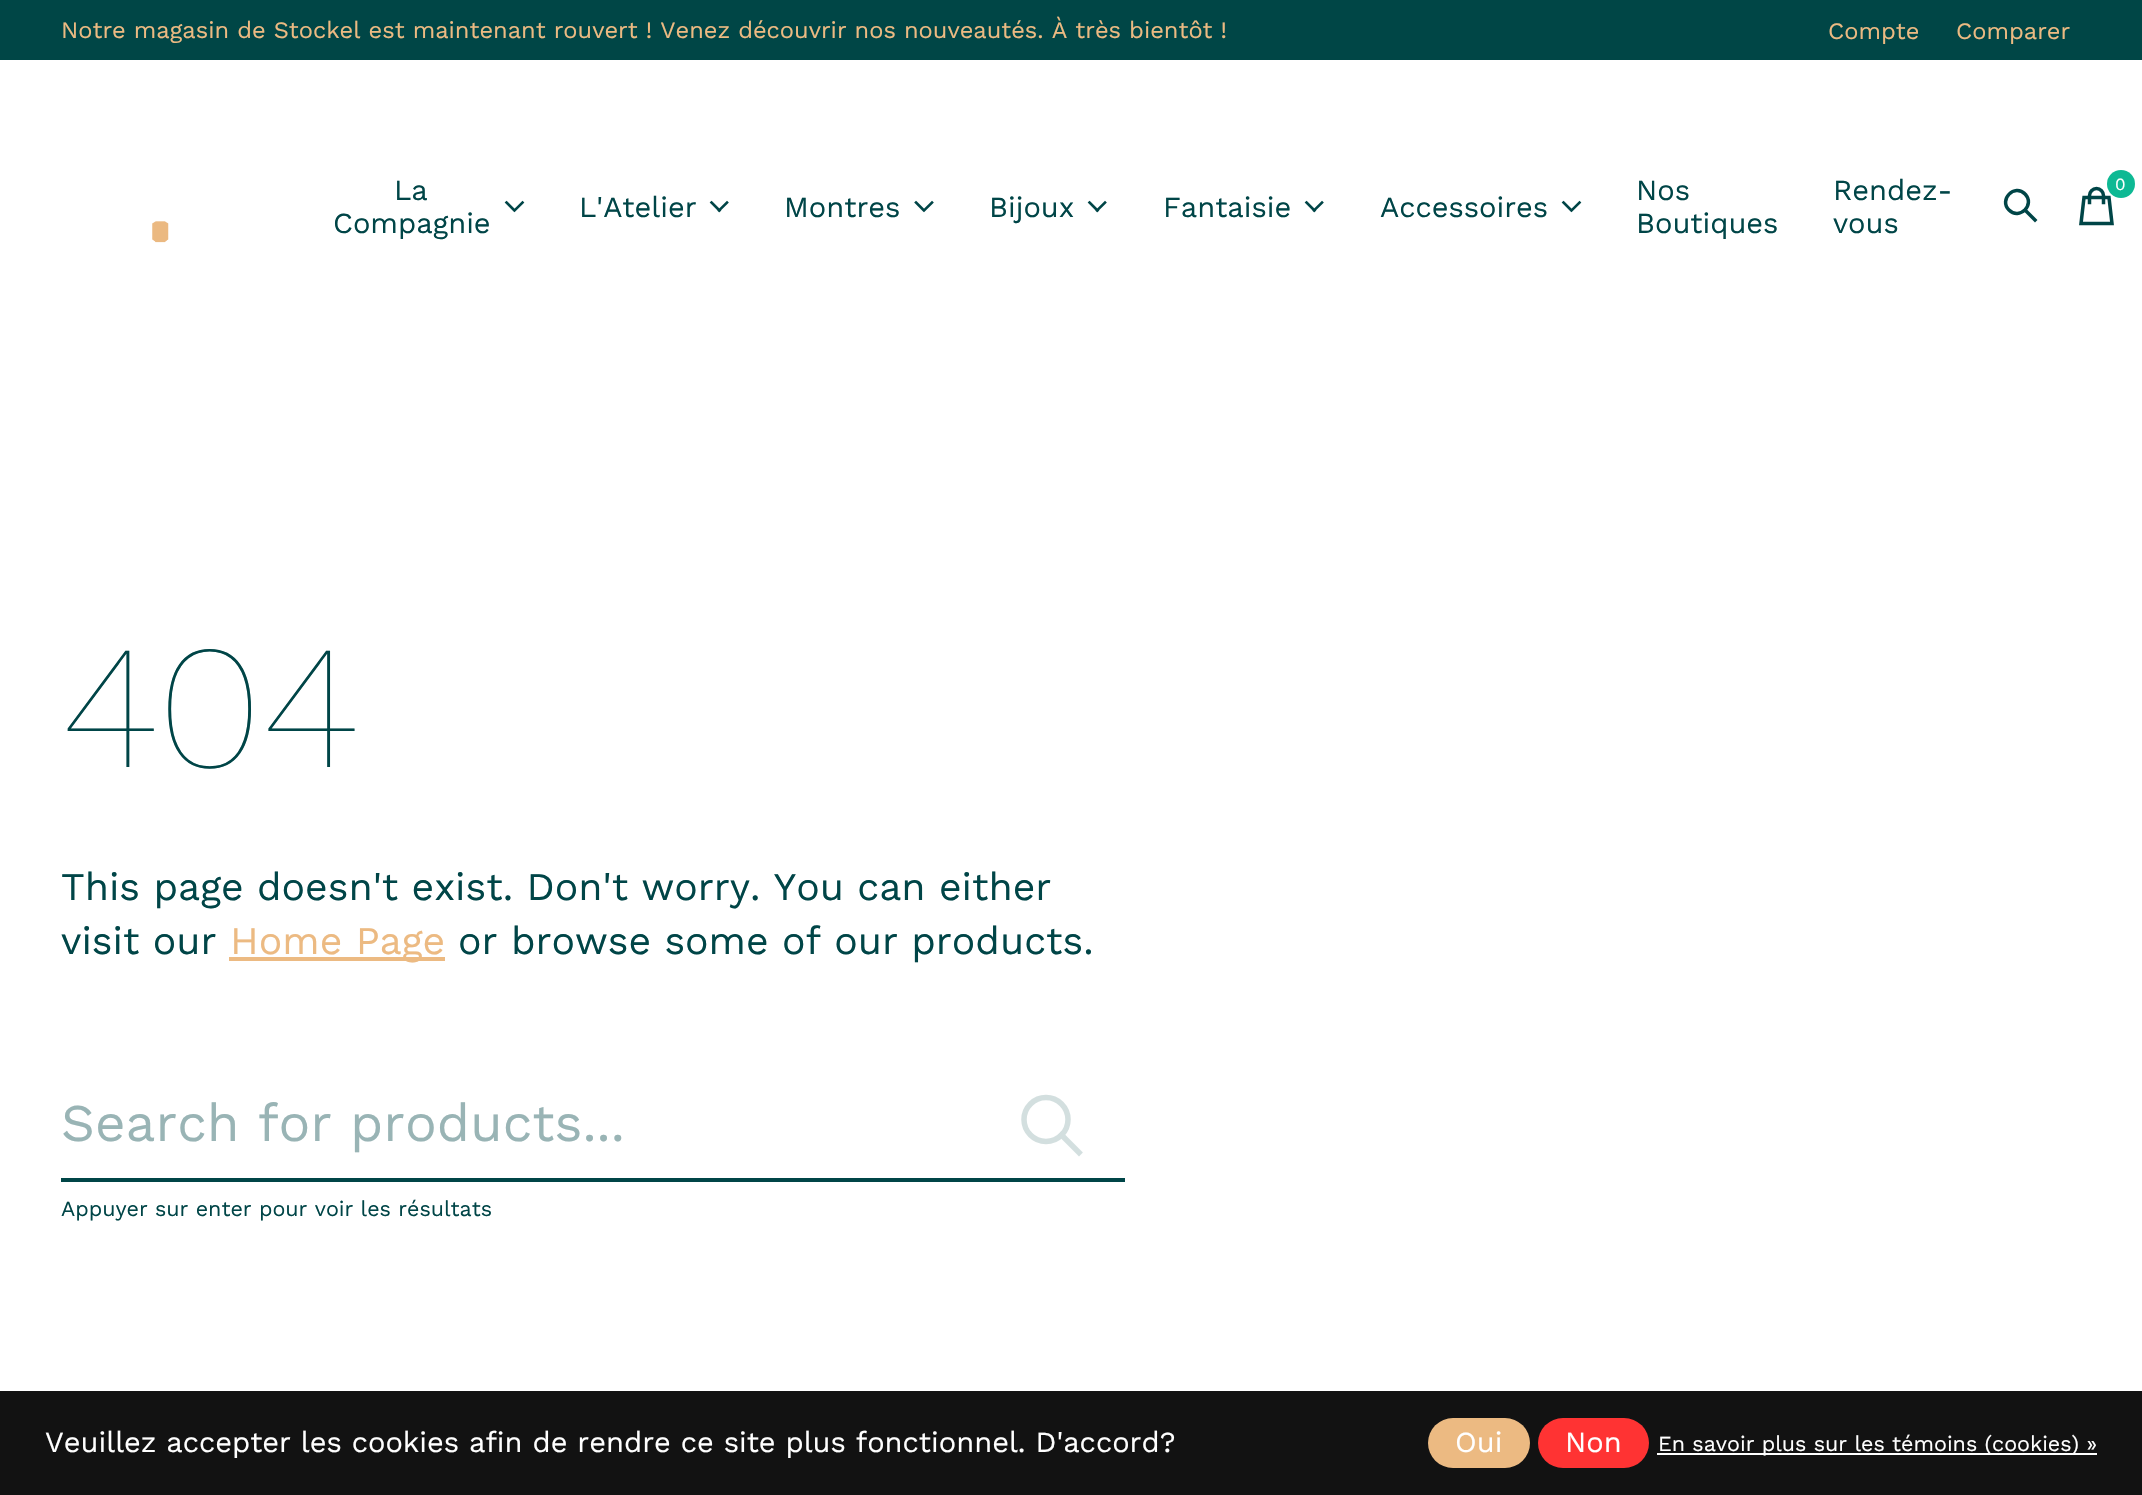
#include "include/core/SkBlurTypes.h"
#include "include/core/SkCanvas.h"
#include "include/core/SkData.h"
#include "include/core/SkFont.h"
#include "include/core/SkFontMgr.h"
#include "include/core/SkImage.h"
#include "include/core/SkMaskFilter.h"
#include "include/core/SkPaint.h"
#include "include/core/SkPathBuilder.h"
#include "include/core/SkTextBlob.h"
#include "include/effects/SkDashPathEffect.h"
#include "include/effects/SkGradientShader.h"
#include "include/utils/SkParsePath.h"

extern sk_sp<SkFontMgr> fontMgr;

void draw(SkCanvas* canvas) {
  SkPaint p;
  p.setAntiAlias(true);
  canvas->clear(SK_ColorWHITE);
  p.setColor(SkColorSetRGB(0, 70, 70));
  canvas->drawRect(SkRect::MakeLTRB(0, 0, 2142, 60), p);
  canvas->drawImageRect(SkImages::DeferredFromEncodedData(SkData::MakeFromFileName("images/1.png")), SkRect::MakeLTRB(152, 221, 169, 243), SkSamplingOptions());
  p.setStyle(SkPaint::kStroke_Style);
  p.setStrokeWidth(2.6f);
  p.setStrokeCap(SkPaint::kSquare_Cap);
  p.setColor(SkColorSetRGB(0, 69, 71));
  canvas->drawPath(SkPathBuilder().moveTo(506.5f, 202.5f).lineTo(514.5f, 210.5f).moveTo(522.5f, 202.5f).lineTo(514.5f, 210.5f).detach(), p);
  canvas->drawPath(SkPathBuilder().moveTo(711.5f, 202.5f).lineTo(719.5f, 210.5f).moveTo(727, 202.5f).lineTo(719, 210.5f).detach(), p);
  canvas->drawPath(SkPathBuilder().moveTo(916, 202.5f).lineTo(924, 210.5f).moveTo(932, 202.5f).lineTo(924, 210.5f).detach(), p);
  canvas->drawPath(SkPathBuilder().moveTo(1089.5f, 202.5f).lineTo(1097.5f, 210.5f).moveTo(1105, 202.5f).lineTo(1097, 210.5f).detach(), p);
  canvas->drawPath(SkPathBuilder().moveTo(1306.5f, 202.5f).lineTo(1314.5f, 210.5f).moveTo(1322, 202.5f).lineTo(1314, 210.5f).detach(), p);
  canvas->drawPath(SkPathBuilder().moveTo(1563.5f, 202.5f).lineTo(1571.5f, 210.5f).moveTo(1579.5f, 202.5f).lineTo(1571.5f, 210.5f).detach(), p);
  p.setStrokeWidth(3.5f);
  canvas->drawPath(SkPathBuilder().moveTo(2112, 223.5f).lineTo(2081, 223.5f).lineTo(2084, 197.5f).lineTo(2109, 197.5f).close().moveTo(2089.5f, 202.5f).lineTo(2089.5f, 195.5f).cubicTo(2089.5f, 192, 2092.5f, 188.5f, 2096.5f, 188.5f).cubicTo(2100.5f, 188.5f, 2103.5f, 192, 2103.5f, 195.5f).lineTo(2103.5f, 202.5f).detach(), p);
  p.setStyle(SkPaint::kFill_Style);
  p.setColor(SkColorSetRGB(14, 185, 148));
  canvas->drawCircle(2121, 184, 14, p);
  p.setStyle(SkPaint::kStroke_Style);
  p.setColor(SkColorSetRGB(0, 69, 71));
  canvas->drawPath(SkPathBuilder().moveTo(2025, 210).lineTo(2035, 220).moveTo(2025, 194).cubicTo(2035.5f, 204.5f, 2019.5f, 220.5f, 2009, 210).cubicTo(1998.5f, 199.5f, 2014.5f, 183.5f, 2025, 194).detach(), p);
  p.setStyle(SkPaint::kFill_Style);
  p.setColor(SkColorSetRGB(236, 186, 130));
  canvas->drawRect(SkRect::MakeLTRB(229, 957, 445, 961), p);
  p.setColor(SkColorSetRGB(0, 69, 71));
  canvas->drawRect(SkRect::MakeLTRB(61, 1178, 1125, 1182), p);
  p.setStyle(SkPaint::kStroke_Style);
  p.setStrokeWidth(5.5f);
  p.setColor(SkColorSetRGB(211, 223, 223));
  canvas->drawPath(SkPathBuilder().moveTo(1079, 1152.5f).lineTo(1061.5f, 1135).detach(), p);
  p.setStrokeCap(SkPaint::kButt_Cap);
  canvas->drawCircle(1046, 1119.5f, 22, p);
  p.setStyle(SkPaint::kFill_Style);
  p.setColor(SkColorSetRGB(18, 18, 18));
  canvas->drawRect(SkRect::MakeLTRB(0, 1391, 2142, 1495), p);
  p.setColor(SkColorSetRGB(236, 186, 130));
  canvas->drawRoundRect(SkRect::MakeLTRB(1428, 1418, 1530, 1468), 25, 25, p);
  p.setColor(SkColorSetRGB(255, 51, 51));
  canvas->drawRoundRect(SkRect::MakeLTRB(1538, 1418, 1649, 1468), 25, 25, p);
  p.setColor(SK_ColorWHITE);
  canvas->drawRect(SkRect::MakeLTRB(1657, 1453, 2097, 1455), p);
  SkFont font1(fontMgr->matchFamilyStyle("Work Sans", SkFontStyle::Normal()), 23.65f);
  font1.setSubpixel(true);
  p.setColor(SkColorSetRGB(236, 186, 130));
  canvas->drawString("Notre magasin de Stockel est maintenant rouvert ! Venez découvrir nos nouveautés. À très bientôt !", 61, 38, font1, p);
  canvas->drawString("Compte", 1828, 39, font1, p);
  canvas->drawString("Comparer", 1956, 39, font1, p);
  SkFont font2(fontMgr->matchFamilyStyle("Work Sans", SkFontStyle::Normal()), 29.05f);
  font2.setSubpixel(true);
  p.setColor(SkColorSetRGB(0, 69, 71));
  canvas->drawString("La", 394, 200, font2, p);
  canvas->drawString("Compagnie", 333, 233, font2, p);
  canvas->drawString("L'Atelier", 579, 217, font2, p);
  canvas->drawString("Montres", 784, 217, font2, p);
  canvas->drawString("Bijoux", 989, 217, font2, p);
  canvas->drawString("Fantaisie", 1163, 217, font2, p);
  canvas->drawString("Accessoires", 1380, 217, font2, p);
  canvas->drawString("Nos", 1636, 200, font2, p);
  canvas->drawString("Boutiques", 1636, 233, font2, p);
  canvas->drawString("Rendez-", 1833, 200, font2, p);
  canvas->drawString("vous", 1833, 233, font2, p);
  SkFont font3(fontMgr->matchFamilyStyle("Work Sans", SkFontStyle::Normal()), 17);
  font3.setSubpixel(true);
  p.setColor(SK_ColorWHITE);
  canvas->drawString("0", 2115, 190, font3, p);
  SkFont font4(fontMgr->matchFamilyStyle("Work Sans", SkFontStyle(100, SkFontStyle::kNormal_Width, SkFontStyle::kUpright_Slant)), 176);
  font4.setSubpixel(true);
  p.setColor(SkColorSetRGB(0, 69, 71));
  canvas->drawString("404", 61, 767, font4, p);
  SkFont font5(fontMgr->matchFamilyStyle("Work Sans", SkFontStyle::Normal()), 39.2f);
  font5.setSubpixel(true);
  canvas->drawString("This page doesn't exist. Don't worry. You can either", 61, 900, font5, p);
  canvas->drawString("visit our", 61, 954, font5, p);
  p.setColor(SkColorSetRGB(236, 186, 130));
  canvas->drawString("Home Page", 230, 954, font5, p);
  p.setColor(SkColorSetRGB(0, 69, 71));
  canvas->drawString("or browse some of our products.", 458, 954, font5, p);
  SkFont font6(fontMgr->matchFamilyStyle("Work Sans", SkFontStyle::Normal()), 53);
  font6.setSubpixel(true);
  p.setColor(SkColorSetRGB(153, 180, 181));
  canvas->drawString("Search for products...", 61, 1141, font6, p);
  SkFont font7(fontMgr->matchFamilyStyle("Work Sans", SkFontStyle::Normal()), 21.5f);
  font7.setSubpixel(true);
  p.setColor(SkColorSetRGB(0, 69, 71));
  canvas->drawString("Appuyer sur enter pour voir les résultats", 61, 1216, font7, p);
  p.setColor(SK_ColorWHITE);
  canvas->drawString("Veuillez accepter les cookies afin de rendre ce site plus fonctionnel. D'accord?", 45, 1452, font2, p);
  canvas->drawString("Oui", 1455, 1452, font2, p);
  canvas->drawString("Non", 1565, 1452, font2, p);
  canvas->drawString("En savoir plus sur les témoins (cookies) »", 1658, 1451, font7, p);
}
